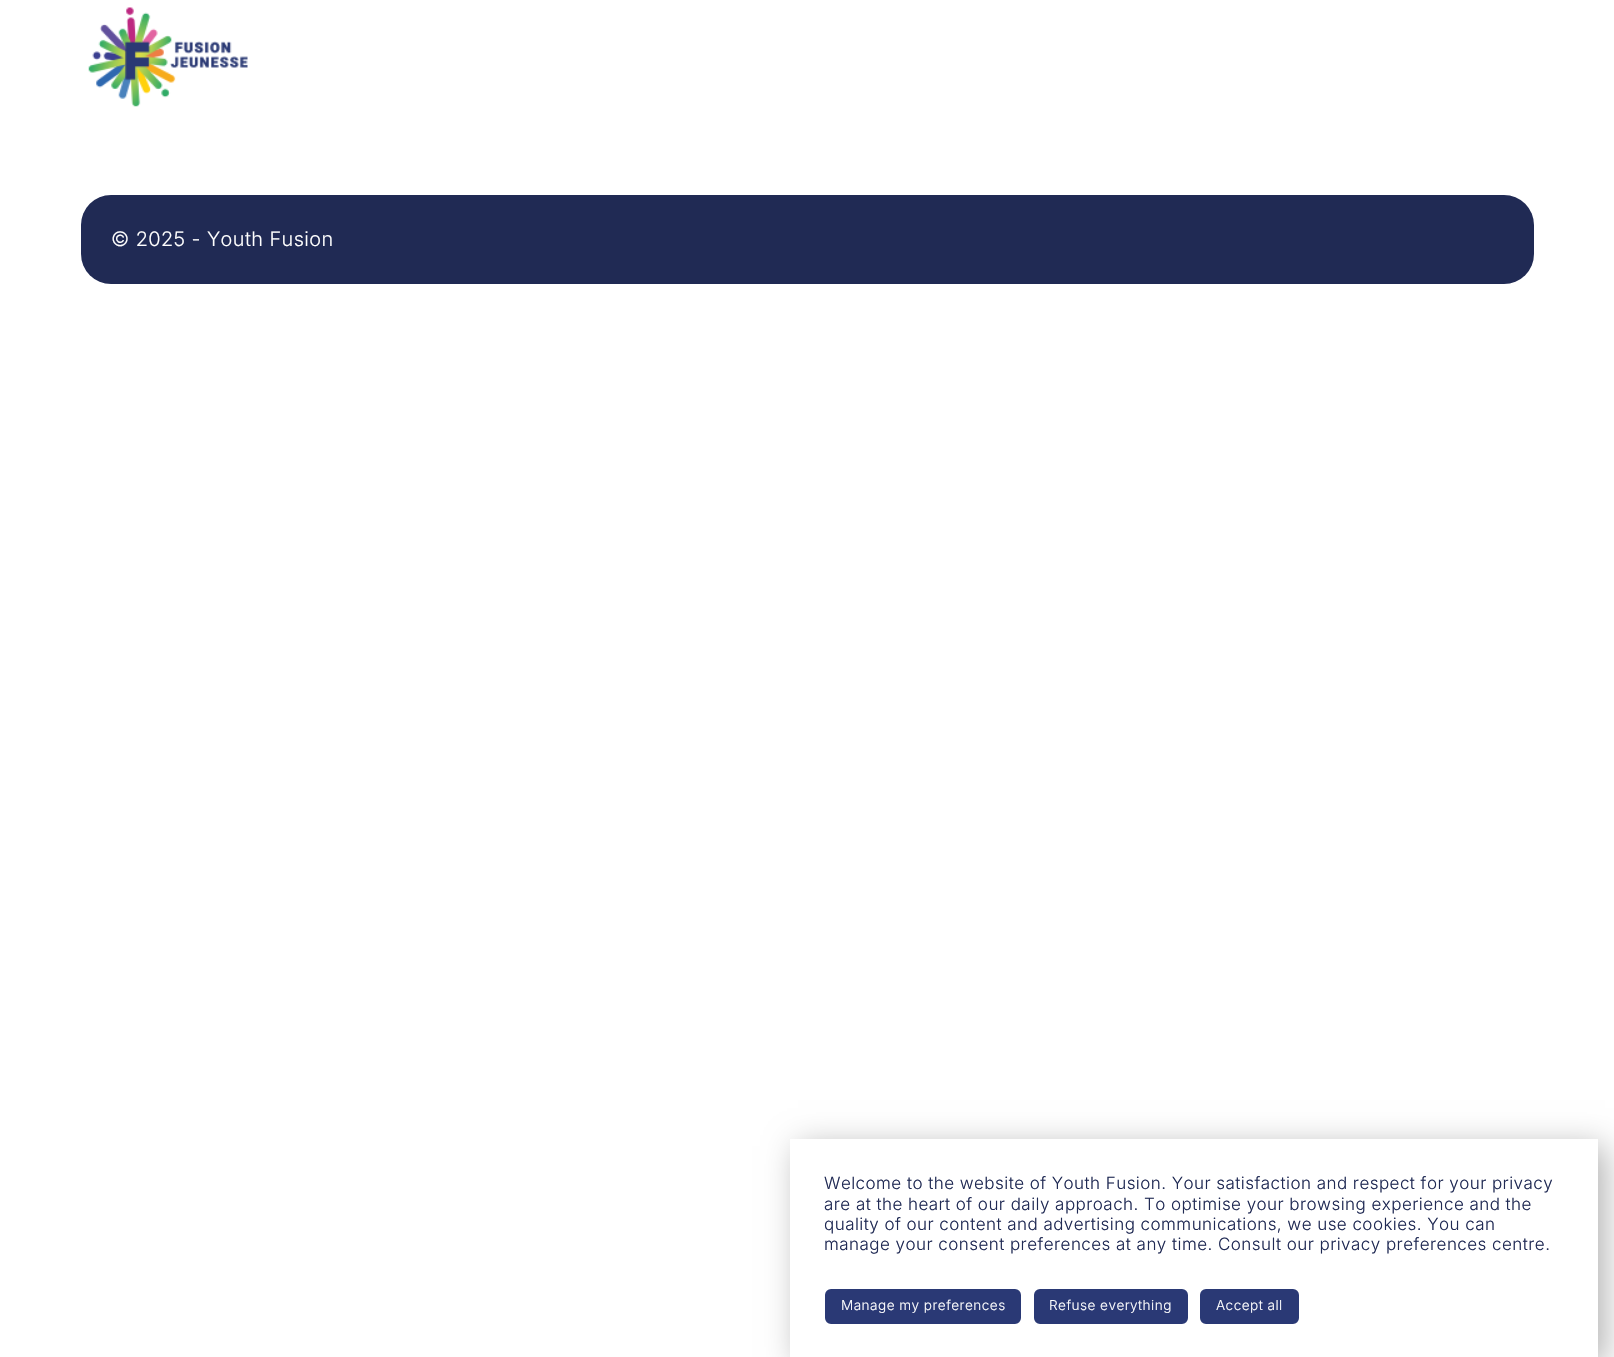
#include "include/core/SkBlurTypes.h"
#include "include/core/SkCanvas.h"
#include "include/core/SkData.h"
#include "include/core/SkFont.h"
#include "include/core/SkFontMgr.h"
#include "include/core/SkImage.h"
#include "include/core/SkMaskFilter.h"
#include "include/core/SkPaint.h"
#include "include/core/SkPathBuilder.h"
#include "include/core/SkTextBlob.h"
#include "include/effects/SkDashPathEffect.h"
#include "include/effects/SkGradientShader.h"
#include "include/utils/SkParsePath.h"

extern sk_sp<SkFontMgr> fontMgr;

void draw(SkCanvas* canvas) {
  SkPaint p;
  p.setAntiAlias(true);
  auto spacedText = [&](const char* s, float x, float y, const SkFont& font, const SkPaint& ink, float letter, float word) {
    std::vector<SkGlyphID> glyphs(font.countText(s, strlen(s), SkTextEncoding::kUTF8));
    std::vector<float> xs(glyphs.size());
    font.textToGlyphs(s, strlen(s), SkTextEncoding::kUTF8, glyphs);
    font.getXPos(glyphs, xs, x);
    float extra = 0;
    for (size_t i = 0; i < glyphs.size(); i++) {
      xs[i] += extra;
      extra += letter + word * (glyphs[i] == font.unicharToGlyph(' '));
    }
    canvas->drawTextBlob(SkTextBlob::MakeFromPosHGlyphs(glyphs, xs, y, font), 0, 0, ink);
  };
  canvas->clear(SK_ColorWHITE);
  canvas->drawImageRect(SkImages::DeferredFromEncodedData(SkData::MakeFromFileName("images/1.png")), SkRect::MakeLTRB(88, 7, 248, 107), SkSamplingOptions());
  p.setColor(SkColorSetRGB(32, 42, 84));
  canvas->drawRoundRect(SkRect::MakeLTRB(81, 195, 1534, 284), 30, 30, p);
  p.setColor(SkColorSetARGB(77, 0, 0, 0));
  p.setMaskFilter(SkMaskFilter::MakeBlur(kNormal_SkBlurStyle, 15.5f));
  canvas->drawRect(SkRect::MakeLTRB(798, 1146, 1605, 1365), p);
  p.setMaskFilter(nullptr);
  p.setColor(SK_ColorWHITE);
  canvas->drawRect(SkRect::MakeLTRB(790, 1139, 1598, 1357), p);
  p.setColor(SkColorSetRGB(42, 57, 117));
  canvas->drawRoundRect(SkRect::MakeLTRB(826.5f, 1290.5f, 1019.5f, 1322.5f), 4.5f, 4.5f, p);
  p.setStyle(SkPaint::kStroke_Style);
  p.setStrokeWidth(3);
  canvas->drawRoundRect(SkRect::MakeLTRB(826.5f, 1290.5f, 1019.5f, 1322.5f), 4.5f, 4.5f, p);
  p.setStyle(SkPaint::kFill_Style);
  canvas->drawRoundRect(SkRect::MakeLTRB(1035.5f, 1290.5f, 1186.5f, 1322.5f), 4.5f, 4.5f, p);
  p.setStyle(SkPaint::kStroke_Style);
  canvas->drawRoundRect(SkRect::MakeLTRB(1035.5f, 1290.5f, 1186.5f, 1322.5f), 4.5f, 4.5f, p);
  p.setStyle(SkPaint::kFill_Style);
  canvas->drawRoundRect(SkRect::MakeLTRB(1201.5f, 1290.5f, 1297.5f, 1322.5f), 4.5f, 4.5f, p);
  p.setStyle(SkPaint::kStroke_Style);
  canvas->drawRoundRect(SkRect::MakeLTRB(1201.5f, 1290.5f, 1297.5f, 1322.5f), 4.5f, 4.5f, p);
  SkFont font1(fontMgr->matchFamilyStyle("Inter", SkFontStyle(300, SkFontStyle::kNormal_Width, SkFontStyle::kUpright_Slant)), 20);
  font1.setSubpixel(true);
  p.setStyle(SkPaint::kFill_Style);
  p.setColor(SK_ColorWHITE);
  spacedText("© 2025 - Youth Fusion", 111, 246, font1, p, 0.45f, 0);
  SkFont font2(fontMgr->matchFamilyStyle("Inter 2", SkFontStyle(300, SkFontStyle::kNormal_Width, SkFontStyle::kUpright_Slant)), 17);
  font2.setSubpixel(true);
  p.setColor(SkColorSetRGB(32, 42, 84));
  spacedText("Welcome to the website of Youth Fusion. Your satisfaction and respect for your privacy", 824, 1189, font2, p, 0.45f, 0);
  spacedText("are at the heart of our daily approach. To optimise your browsing experience and the", 824, 1210, font2, p, 0.45f, 0);
  spacedText("quality of our content and advertising communications, we use cookies. You can", 824, 1230, font2, p, 0.45f, 0);
  spacedText("manage your consent preferences at any time. Consult our privacy preferences centre.", 824, 1250, font2, p, 0.45f, 0);
  SkFont font3(fontMgr->matchFamilyStyle("Inter 2", SkFontStyle(300, SkFontStyle::kNormal_Width, SkFontStyle::kUpright_Slant)), 13.6f);
  font3.setSubpixel(true);
  p.setColor(SK_ColorWHITE);
  spacedText("Manage my preferences", 841, 1310, font3, p, 0.45f, 0);
  spacedText("Refuse everything", 1049, 1310, font3, p, 0.45f, 0);
  spacedText("Accept all", 1216, 1310, font3, p, 0.45f, 0);
}
